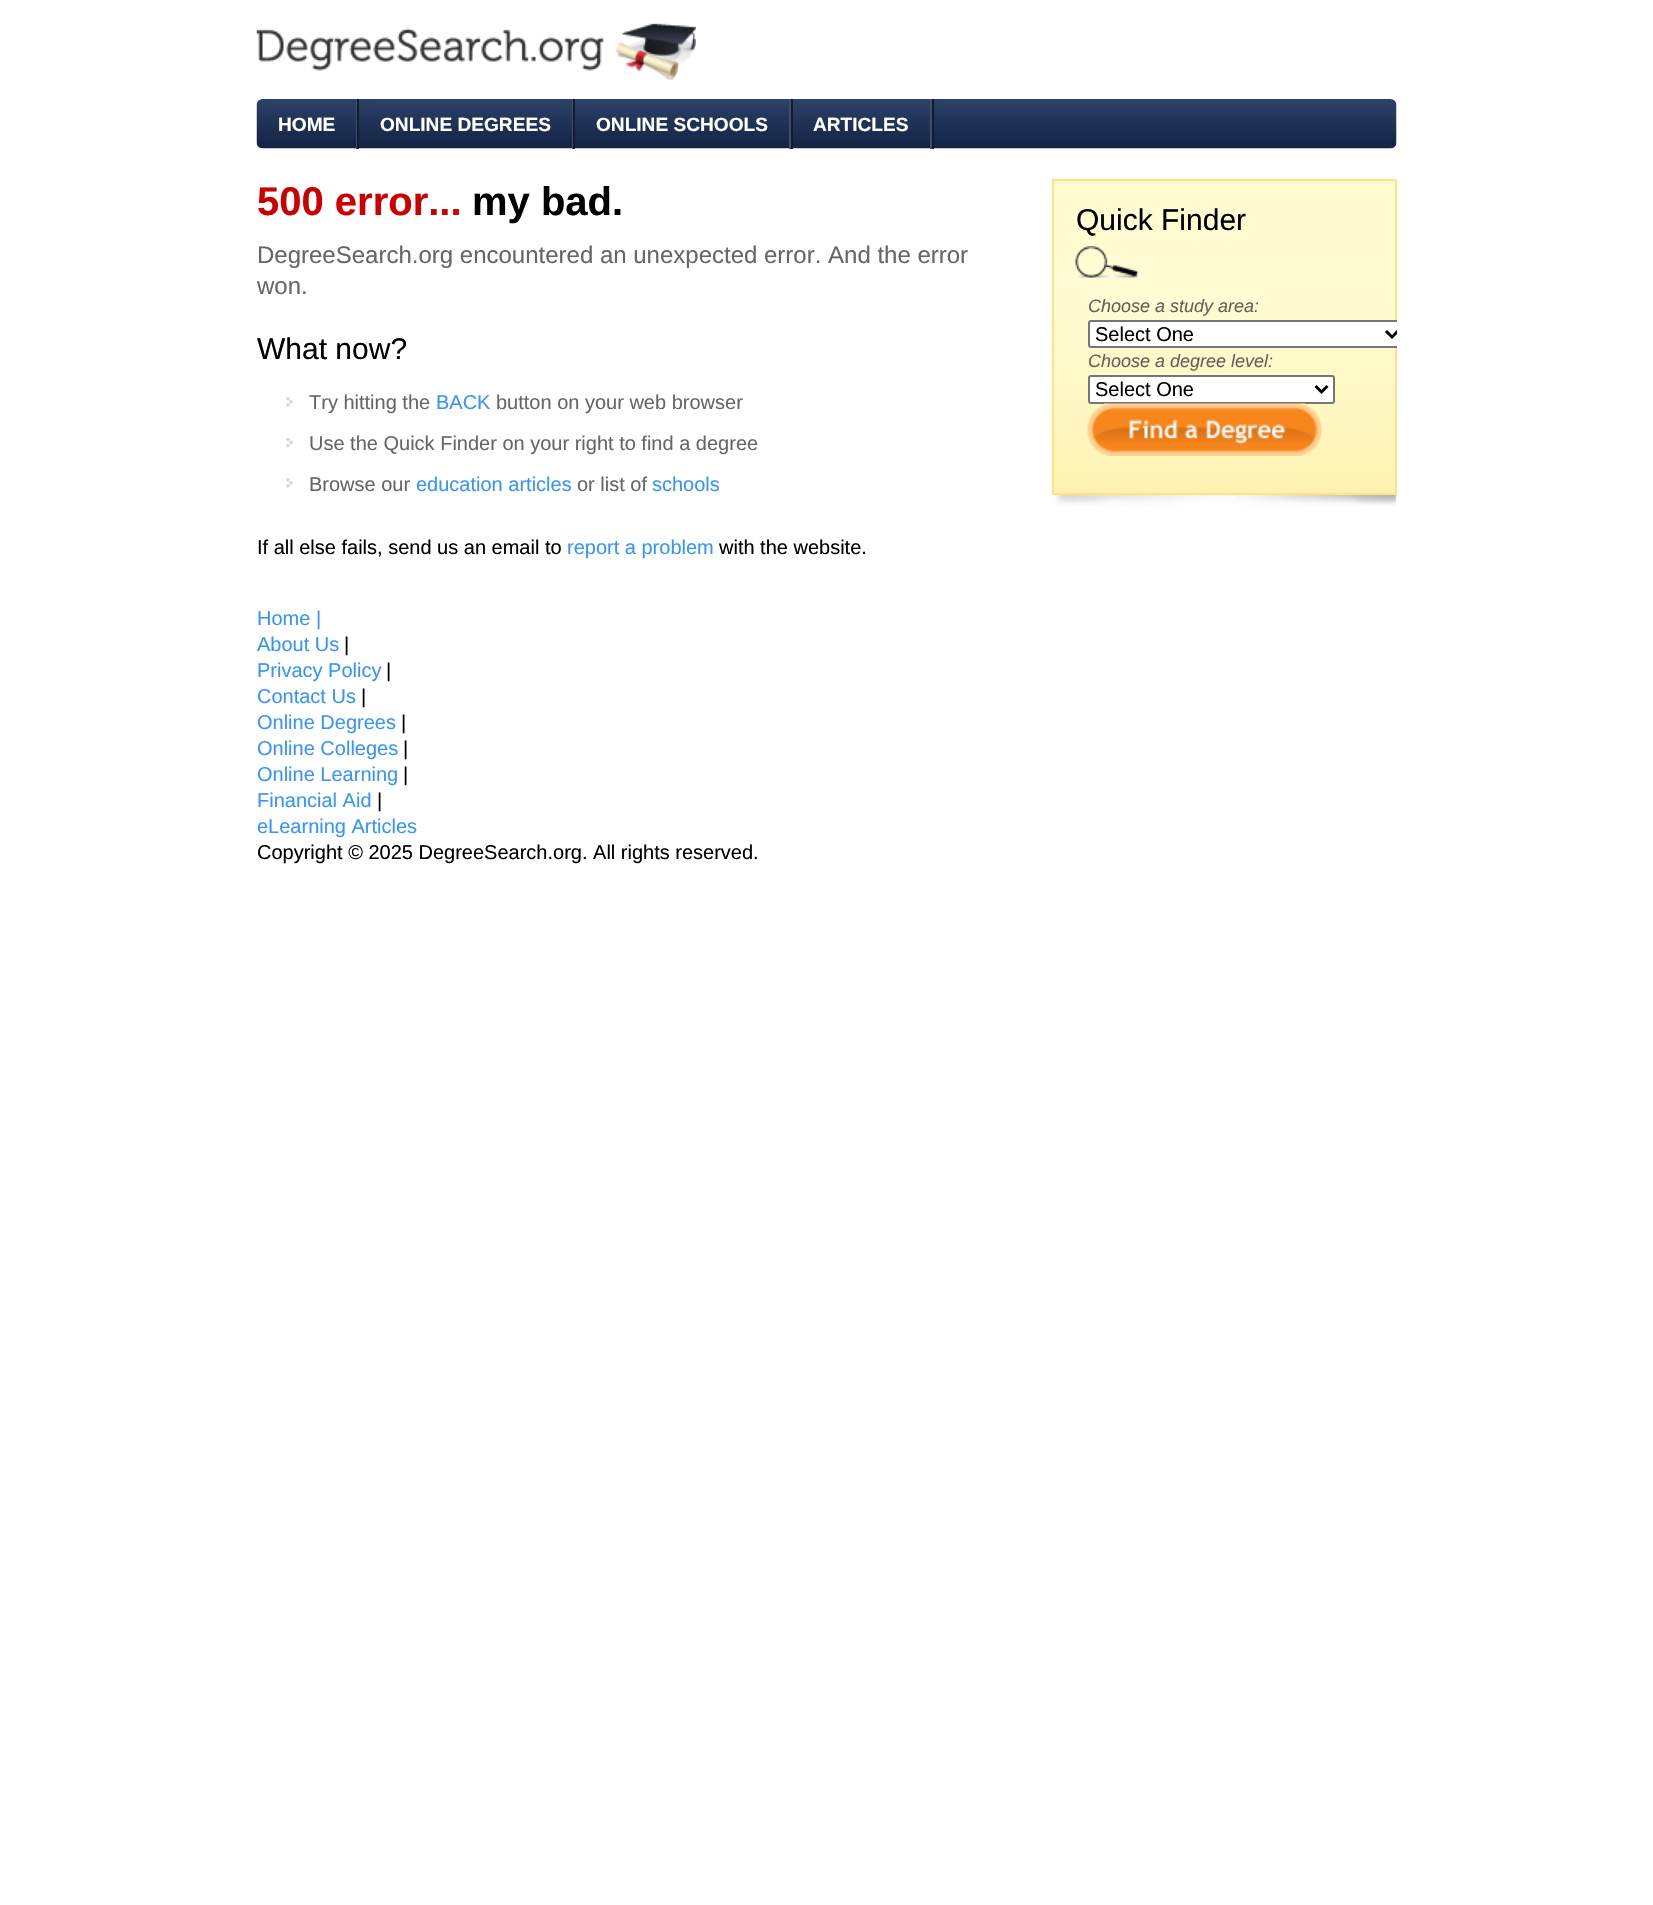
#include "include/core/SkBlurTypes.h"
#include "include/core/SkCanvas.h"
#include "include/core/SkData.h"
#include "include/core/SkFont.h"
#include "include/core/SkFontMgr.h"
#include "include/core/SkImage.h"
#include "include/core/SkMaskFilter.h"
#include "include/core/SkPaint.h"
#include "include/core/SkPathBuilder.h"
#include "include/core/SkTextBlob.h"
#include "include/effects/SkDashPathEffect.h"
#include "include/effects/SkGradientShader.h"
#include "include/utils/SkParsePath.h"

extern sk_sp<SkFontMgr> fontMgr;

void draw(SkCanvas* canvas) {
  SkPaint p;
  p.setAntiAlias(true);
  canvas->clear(SK_ColorWHITE);
  canvas->drawImageRect(SkImages::DeferredFromEncodedData(SkData::MakeFromFileName("images/1.png")), SkRect::MakeLTRB(256, 23, 696, 80), SkSamplingOptions());
  canvas->drawImageRect(SkImages::DeferredFromEncodedData(SkData::MakeFromFileName("images/2.png")), SkRect::MakeLTRB(256, 99, 1397, 149), SkSamplingOptions());
  p.setColor(SkColorSetRGB(19, 26, 45));
  canvas->drawRect(SkRect::MakeLTRB(932, 99, 934, 149), p);
  p.setColor(SkColorSetRGB(65, 77, 107));
  canvas->drawRect(SkRect::MakeLTRB(356, 99, 357, 149), p);
  canvas->drawRect(SkRect::MakeLTRB(572, 99, 573, 149), p);
  p.setColor(SkColorSetRGB(19, 26, 45));
  canvas->drawRect(SkRect::MakeLTRB(357, 99, 359, 149), p);
  p.setColor(SkColorSetRGB(65, 77, 107));
  canvas->drawRect(SkRect::MakeLTRB(789, 99, 791, 149), p);
  p.setColor(SkColorSetRGB(19, 26, 45));
  canvas->drawRect(SkRect::MakeLTRB(573, 99, 575, 149), p);
  p.setColor(SkColorSetRGB(65, 77, 107));
  canvas->drawRect(SkRect::MakeLTRB(930, 99, 932, 149), p);
  p.setColor(SkColorSetRGB(19, 26, 45));
  canvas->drawRect(SkRect::MakeLTRB(791, 99, 793, 149), p);
  canvas->drawImageRect(SkImages::DeferredFromEncodedData(SkData::MakeFromFileName("images/3.png")), SkRect::MakeLTRB(286, 397, 293, 407), SkSamplingOptions());
  canvas->drawImageRect(SkImages::DeferredFromEncodedData(SkData::MakeFromFileName("images/4.png")), SkRect::MakeLTRB(286, 438, 293, 447), SkSamplingOptions());
  canvas->drawImageRect(SkImages::DeferredFromEncodedData(SkData::MakeFromFileName("images/3.png")), SkRect::MakeLTRB(286, 478, 293, 488), SkSamplingOptions());
  p.setColor(SkColorSetRGB(255, 252, 210));
  canvas->drawRect(SkRect::MakeLTRB(1054, 181, 1395, 260), p);
  canvas->drawImageRect(SkImages::DeferredFromEncodedData(SkData::MakeFromFileName("images/5.png")), SkRect::MakeLTRB(1051, 259, 1395, 494), SkSamplingOptions());
  p.setStyle(SkPaint::kStroke_Style);
  p.setStrokeWidth(2);
  p.setColor(SkColorSetRGB(255, 227, 131));
  canvas->drawRect(SkRect::MakeLTRB(1053, 180, 1396, 494), p);
  canvas->drawImageRect(SkImages::DeferredFromEncodedData(SkData::MakeFromFileName("images/6.png")), SkRect::MakeLTRB(1075, 246, 1139, 278), SkSamplingOptions());
  p.setStyle(SkPaint::kFill_Style);
  p.setColor(SK_ColorWHITE);
  canvas->drawPath(SkPathBuilder().moveTo(1091, 320).lineTo(1397, 320).lineTo(1397, 348).lineTo(1091, 348).cubicTo(1089.5f, 348, 1088, 346.5f, 1088, 345).lineTo(1088, 323).cubicTo(1088, 321.5f, 1089.5f, 320, 1091, 320).close().detach(), p);
  canvas->save();
  canvas->clipRect(SkRect::MakeLTRB(1052, 179, 1397, 510));
  p.setStyle(SkPaint::kStroke_Style);
  p.setColor(SkColorSetRGB(118, 118, 118));
  canvas->drawRoundRect(SkRect::MakeLTRB(1089, 321, 1405, 347), 2, 2, p);
  p.setStrokeWidth(3);
  p.setColor(SK_ColorBLACK);
  canvas->drawPath(SkPathBuilder().moveTo(1386, 331).lineTo(1392, 337).lineTo(1398, 331).detach(), p);
  canvas->restore();
  p.setStyle(SkPaint::kFill_Style);
  p.setColor(SK_ColorWHITE);
  canvas->drawRoundRect(SkRect::MakeLTRB(1089, 376, 1334, 403), 2, 2, p);
  p.setStyle(SkPaint::kStroke_Style);
  p.setStrokeWidth(2);
  p.setColor(SkColorSetRGB(118, 118, 118));
  canvas->drawRoundRect(SkRect::MakeLTRB(1089, 376, 1334, 403), 2, 2, p);
  p.setStrokeWidth(3);
  p.setColor(SK_ColorBLACK);
  canvas->drawPath(SkPathBuilder().moveTo(1315.5f, 386).lineTo(1321.5f, 392).lineTo(1327.5f, 386).detach(), p);
  canvas->drawImageRect(SkImages::DeferredFromEncodedData(SkData::MakeFromFileName("images/7.png")), SkRect::MakeLTRB(1087, 403, 1322, 456), SkSamplingOptions());
  canvas->drawImageRect(SkImages::DeferredFromEncodedData(SkData::MakeFromFileName("images/8.png")), SkRect::MakeLTRB(1055, 495, 1397, 506), SkSamplingOptions());
  SkFont font1(fontMgr->matchFamilyStyle("Liberation Sans", SkFontStyle::Bold()), 19.1f);
  font1.setSubpixel(true);
  p.setStyle(SkPaint::kFill_Style);
  p.setColor(SK_ColorWHITE);
  canvas->drawString("HOME", 278, 131, font1, p);
  canvas->drawString("ONLINE DEGREES", 380, 131, font1, p);
  canvas->drawString("ONLINE SCHOOLS", 596, 131, font1, p);
  canvas->drawString("ARTICLES", 813, 131, font1, p);
  SkFont font2(fontMgr->matchFamilyStyle("Liberation Sans", SkFontStyle::Bold()), 40);
  font2.setSubpixel(true);
  p.setColor(SkColorSetRGB(204, 0, 0));
  canvas->drawString("500 error...", 257, 215, font2, p);
  p.setColor(SK_ColorBLACK);
  canvas->drawString("my bad.", 472, 215, font2, p);
  SkFont font3(fontMgr->matchFamilyStyle("Liberation Sans", SkFontStyle::Normal()), 24);
  font3.setSubpixel(true);
  p.setColor(SkColorSetRGB(102, 102, 102));
  canvas->drawString("DegreeSearch.org encountered an unexpected error. And the error", 257, 263, font3, p);
  canvas->drawString("won.", 257, 294, font3, p);
  SkFont font4(fontMgr->matchFamilyStyle("Liberation Sans", SkFontStyle::Normal()), 30);
  font4.setSubpixel(true);
  p.setColor(SK_ColorBLACK);
  canvas->drawString("What now?", 257, 359, font4, p);
  SkFont font5(fontMgr->matchFamilyStyle("Liberation Sans", SkFontStyle::Normal()), 20);
  font5.setSubpixel(true);
  p.setColor(SkColorSetRGB(102, 102, 102));
  canvas->drawString("Try hitting the", 309, 409, font5, p);
  p.setColor(SkColorSetRGB(55, 148, 253));
  canvas->drawString("BACK", 436, 409, font5, p);
  p.setColor(SkColorSetRGB(102, 102, 102));
  canvas->drawString("button on your web browser", 496, 409, font5, p);
  canvas->drawString("Use the Quick Finder on your right to find a degree", 309, 450, font5, p);
  canvas->drawString("Browse our", 309, 491, font5, p);
  p.setColor(SkColorSetRGB(55, 148, 253));
  canvas->drawString("education articles", 416, 491, font5, p);
  p.setColor(SkColorSetRGB(102, 102, 102));
  canvas->drawString("or list of", 577, 491, font5, p);
  p.setColor(SkColorSetRGB(55, 148, 253));
  canvas->drawString("schools", 652, 491, font5, p);
  p.setColor(SK_ColorBLACK);
  canvas->drawString("If all else fails, send us an email to", 257, 554, font5, p);
  p.setColor(SkColorSetRGB(55, 148, 253));
  canvas->drawString("report a problem", 567, 554, font5, p);
  p.setColor(SK_ColorBLACK);
  canvas->drawString("with the website.", 719, 554, font5, p);
  canvas->drawString("Quick Finder", 1076, 230, font4, p);
  SkFont font6(fontMgr->matchFamilyStyle("Liberation Sans", SkFontStyle::Italic()), 18);
  font6.setSubpixel(true);
  p.setColor(SkColorSetRGB(99, 98, 87));
  canvas->drawString("Choose a study area:", 1088, 312, font6, p);
  p.setColor(SK_ColorBLACK);
  canvas->drawString("Select One", 1095, 341, font5, p);
  p.setColor(SkColorSetRGB(99, 98, 87));
  canvas->drawString("Choose a degree level:", 1088, 367, font6, p);
  p.setColor(SK_ColorBLACK);
  canvas->drawString("Select One", 1095, 396, font5, p);
  p.setColor(SkColorSetRGB(55, 148, 253));
  canvas->drawString("Home |", 257, 625, font5, p);
  canvas->drawString("About Us", 257, 651, font5, p);
  p.setColor(SK_ColorBLACK);
  canvas->drawString("|", 344, 651, font5, p);
  p.setColor(SkColorSetRGB(55, 148, 253));
  canvas->drawString("Privacy Policy", 257, 677, font5, p);
  p.setColor(SK_ColorBLACK);
  canvas->drawString("|", 386, 677, font5, p);
  p.setColor(SkColorSetRGB(55, 148, 253));
  canvas->drawString("Contact Us", 257, 703, font5, p);
  p.setColor(SK_ColorBLACK);
  canvas->drawString("|", 361, 703, font5, p);
  p.setColor(SkColorSetRGB(55, 148, 253));
  canvas->drawString("Online Degrees", 257, 729, font5, p);
  p.setColor(SK_ColorBLACK);
  canvas->drawString("|", 401, 729, font5, p);
  p.setColor(SkColorSetRGB(55, 148, 253));
  canvas->drawString("Online Colleges", 257, 755, font5, p);
  p.setColor(SK_ColorBLACK);
  canvas->drawString("|", 403, 755, font5, p);
  p.setColor(SkColorSetRGB(55, 148, 253));
  canvas->drawString("Online Learning", 257, 781, font5, p);
  p.setColor(SK_ColorBLACK);
  canvas->drawString("|", 403, 781, font5, p);
  p.setColor(SkColorSetRGB(55, 148, 253));
  canvas->drawString("Financial Aid", 257, 807, font5, p);
  p.setColor(SK_ColorBLACK);
  canvas->drawString("|", 377, 807, font5, p);
  p.setColor(SkColorSetRGB(55, 148, 253));
  canvas->drawString("eLearning Articles", 257, 833, font5, p);
  p.setColor(SK_ColorBLACK);
  canvas->drawString("Copyright © 2025 DegreeSearch.org. All rights reserved.", 257, 859, font5, p);
}
